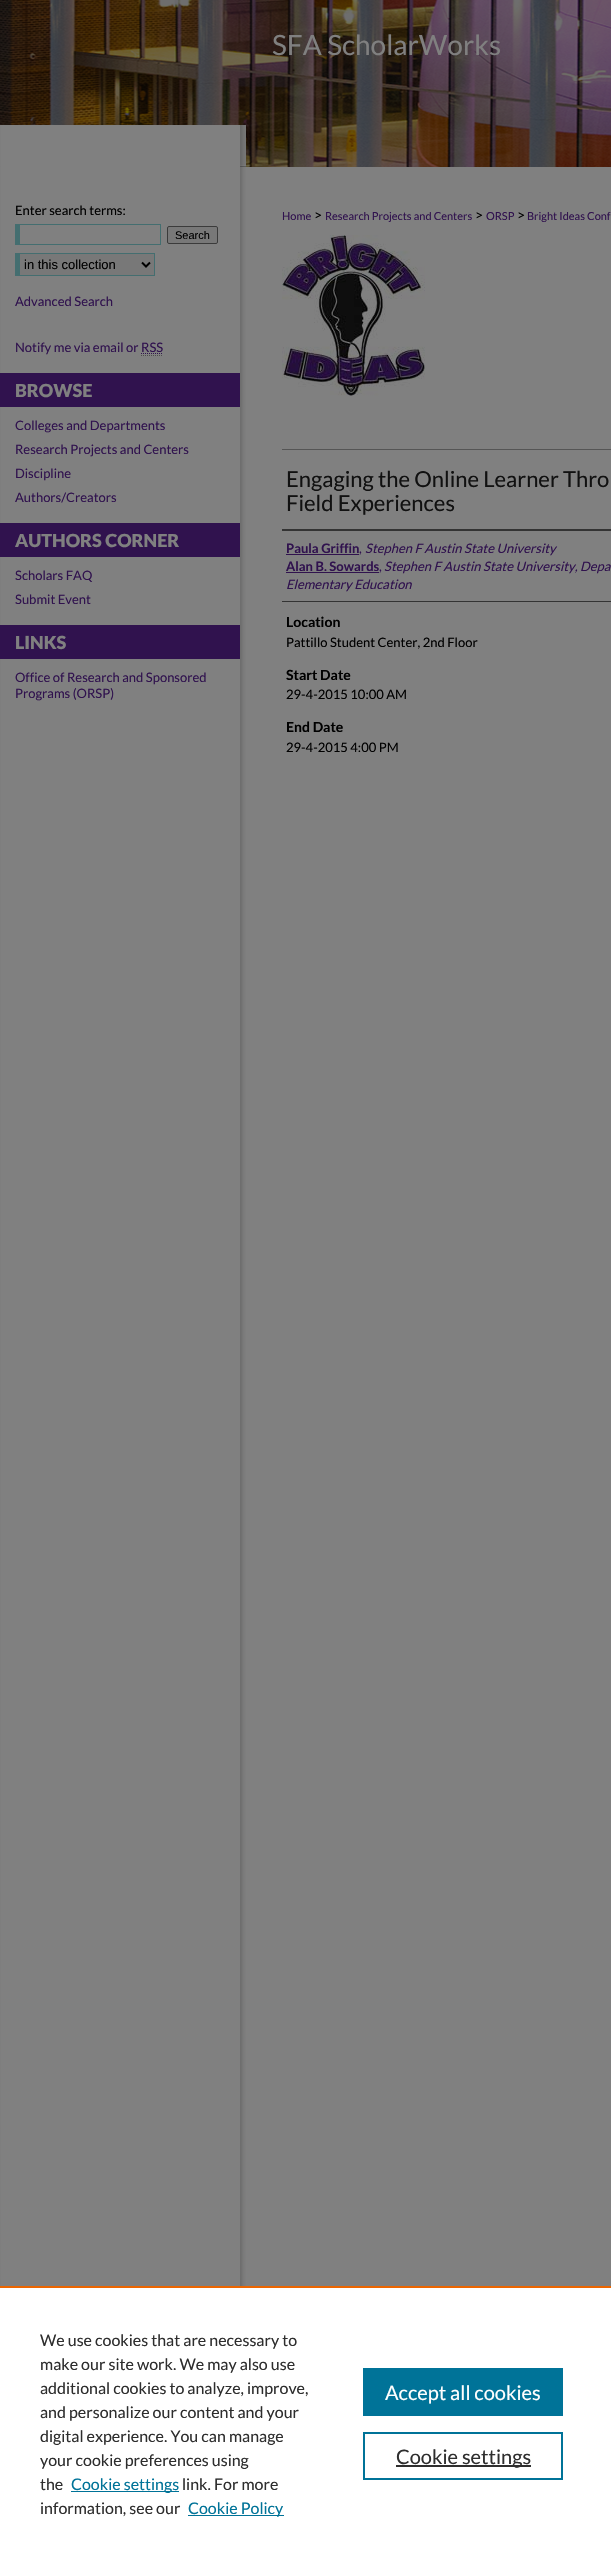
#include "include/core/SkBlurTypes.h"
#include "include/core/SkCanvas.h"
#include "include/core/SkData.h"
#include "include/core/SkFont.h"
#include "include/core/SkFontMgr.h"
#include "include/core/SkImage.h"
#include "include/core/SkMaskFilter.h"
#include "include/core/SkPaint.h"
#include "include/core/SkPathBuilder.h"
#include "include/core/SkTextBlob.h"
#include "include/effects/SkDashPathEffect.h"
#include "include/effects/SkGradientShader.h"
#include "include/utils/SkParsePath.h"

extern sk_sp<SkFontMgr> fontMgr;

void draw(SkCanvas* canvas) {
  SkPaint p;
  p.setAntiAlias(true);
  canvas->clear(SK_ColorWHITE);
  canvas->drawImageRect(SkImages::DeferredFromEncodedData(SkData::MakeFromFileName("images/1.png")), SkRect::MakeLTRB(0, 0, 611, 167), SkSamplingOptions());
  canvas->drawImageRect(SkImages::DeferredFromEncodedData(SkData::MakeFromFileName("images/2.png")), SkRect::MakeLTRB(0, 125, 246, 167), SkSamplingOptions());
  canvas->drawImageRect(SkImages::DeferredFromEncodedData(SkData::MakeFromFileName("images/3.png")), SkRect::MakeLTRB(0, 167, 611, 2286), SkSamplingOptions());
  p.setColor(SkColorSetRGB(68, 110, 112));
  canvas->drawRect(SkRect::MakeLTRB(15, 224, 161, 225), p);
  canvas->drawRect(SkRect::MakeLTRB(160, 224, 161, 245), p);
  canvas->drawRect(SkRect::MakeLTRB(15, 244, 161, 245), p);
  canvas->drawRect(SkRect::MakeLTRB(15, 224, 20, 245), p);
  p.setColor(SkColorSetRGB(120, 120, 120));
  canvas->drawRoundRect(SkRect::MakeLTRB(167.5f, 226.5f, 217.5f, 243.5f), 1.5f, 1.5f, p);
  p.setStyle(SkPaint::kStroke_Style);
  p.setStrokeWidth(1);
  p.setColor(SkColorSetRGB(59, 59, 59));
  canvas->drawRoundRect(SkRect::MakeLTRB(167.5f, 226.5f, 217.5f, 243.5f), 1.5f, 1.5f, p);
  p.setStyle(SkPaint::kFill_Style);
  p.setColor(SkColorSetRGB(120, 120, 120));
  canvas->drawRect(SkRect::MakeLTRB(20, 254, 154, 275), p);
  p.setColor(SkColorSetRGB(68, 110, 112));
  canvas->drawRect(SkRect::MakeLTRB(15, 253, 155, 254), p);
  canvas->drawRect(SkRect::MakeLTRB(154, 253, 155, 276), p);
  canvas->drawRect(SkRect::MakeLTRB(15, 275, 155, 276), p);
  canvas->drawRect(SkRect::MakeLTRB(15, 253, 20, 276), p);
  p.setStyle(SkPaint::kStroke_Style);
  p.setStrokeWidth(2);
  p.setColor(SK_ColorBLACK);
  canvas->drawPath(SkPathBuilder().moveTo(142, 262.5f).lineTo(146, 266.5f).lineTo(150, 262.5f).detach(), p);
  p.setStrokeWidth(1);
  p.setColor(SkColorSetRGB(48, 18, 78));
  p.setPathEffect(SkDashPathEffect::Make({{1, 1}}, 0));
  canvas->drawPath(SkPathBuilder().moveTo(141, 353.5f).lineTo(163, 353.5f).detach(), p);
  p.setPathEffect(nullptr);
  p.setColor(SkColorSetRGB(77, 77, 77));
  p.setPathEffect(SkDashPathEffect::Make({{1, 1}}, 0));
  canvas->drawPath(SkPathBuilder().moveTo(141, 355.5f).lineTo(163, 355.5f).detach(), p);
  p.setPathEffect(nullptr);
  p.setStyle(SkPaint::kFill_Style);
  p.setColor(SkColorSetRGB(48, 18, 78));
  canvas->drawRect(SkRect::MakeLTRB(0, 373, 240, 407), p);
  canvas->drawRect(SkRect::MakeLTRB(0, 523, 240, 557), p);
  canvas->drawRect(SkRect::MakeLTRB(0, 625, 240, 659), p);
  canvas->drawImageRect(SkImages::DeferredFromEncodedData(SkData::MakeFromFileName("images/4.png")), SkRect::MakeLTRB(282, 235, 425, 396), SkSamplingOptions());
  p.setColor(SkColorSetRGB(85, 85, 85));
  canvas->drawRect(SkRect::MakeLTRB(282, 449, 611, 450), p);
  p.setColor(SkColorSetRGB(51, 51, 51));
  canvas->drawRect(SkRect::MakeLTRB(282, 529, 611, 531), p);
  canvas->drawRect(SkRect::MakeLTRB(282, 601, 611, 602), p);
  p.setColor(SkColorSetRGB(48, 18, 78));
  canvas->drawRect(SkRect::MakeLTRB(286, 554, 359, 555), p);
  canvas->drawRect(SkRect::MakeLTRB(286, 572, 379, 573), p);
  p.setColor(SkColorSetRGB(235, 101, 0));
  canvas->drawRect(SkRect::MakeLTRB(0, 2286, 611, 2288), p);
  p.setColor(SkColorSetRGB(0, 115, 152));
  canvas->drawRect(SkRect::MakeLTRB(71, 2491, 179, 2492), p);
  canvas->drawRect(SkRect::MakeLTRB(188, 2515, 284, 2516), p);
  canvas->drawRect(SkRect::MakeLTRB(363, 2368, 563, 2416), p);
  p.setStyle(SkPaint::kStroke_Style);
  p.setStrokeWidth(2);
  canvas->drawRect(SkRect::MakeLTRB(364, 2433, 562, 2479), p);
  p.setStyle(SkPaint::kFill_Style);
  p.setColor(SkColorSetRGB(46, 46, 46));
  canvas->drawRect(SkRect::MakeLTRB(396, 2465, 531, 2467), p);
  SkFont font1(fontMgr->matchFamilyStyle("Lato", SkFontStyle::Normal()), 28);
  font1.setSubpixel(true);
  p.setColor(SkColorSetRGB(128, 128, 128));
  canvas->drawString("SFA ScholarWorks", 272, 55, font1, p);
  SkFont font2(fontMgr->matchFamilyStyle("Lato", SkFontStyle::Normal()), 13);
  font2.setSubpixel(true);
  p.setColor(SK_ColorBLACK);
  canvas->drawString("Enter search terms:", 15, 215, font2, p);
  SkFont font3(fontMgr->matchFamilyStyle("Liberation Sans", SkFontStyle::Normal()), 11);
  font3.setSubpixel(true);
  canvas->drawString("Search", 175, 239, font3, p);
  SkFont font4(fontMgr->matchFamilyStyle("Liberation Sans", SkFontStyle::Normal()), 13);
  font4.setSubpixel(true);
  canvas->drawString("in this collection", 24, 269, font4, p);
  p.setColor(SkColorSetRGB(48, 18, 78));
  canvas->drawString("Advanced Search", 15, 306, font2, p);
  canvas->drawString("Notify me via email or RSS", 15, 352, font2, p);
  SkFont font5(fontMgr->matchFamilyStyle("Lato", SkFontStyle(900, SkFontStyle::kNormal_Width, SkFontStyle::kUpright_Slant)), 18);
  font5.setSubpixel(true);
  p.setColor(SkColorSetRGB(128, 128, 128));
  canvas->drawString("BROWSE", 15, 397, font5, p);
  p.setColor(SkColorSetRGB(48, 18, 78));
  canvas->drawString("Colleges and Departments", 15, 430, font2, p);
  canvas->drawString("Research Projects and Centers", 15, 454, font2, p);
  canvas->drawString("Discipline", 15, 478, font2, p);
  canvas->drawString("Authors/Creators", 15, 502, font2, p);
  p.setColor(SkColorSetRGB(128, 128, 128));
  canvas->drawString("AUTHORS CORNER", 15, 547, font5, p);
  p.setColor(SkColorSetRGB(48, 18, 78));
  canvas->drawString("Scholars FAQ", 15, 580, font2, p);
  canvas->drawString("Submit Event", 15, 604, font2, p);
  p.setColor(SkColorSetRGB(128, 128, 128));
  canvas->drawString("LINKS", 15, 649, font5, p);
  p.setColor(SkColorSetRGB(48, 18, 78));
  canvas->drawString("Office of Research and Sponsored", 15, 682, font2, p);
  canvas->drawString("Programs (ORSP)", 15, 698, font2, p);
  SkFont font6(fontMgr->matchFamilyStyle("Lato", SkFontStyle::Normal()), 11);
  font6.setSubpixel(true);
  canvas->drawString("Home", 282, 220, font6, p);
  SkFont font7(fontMgr->matchFamilyStyle("Lato", SkFontStyle::Normal()), 14);
  font7.setSubpixel(true);
  p.setColor(SK_ColorBLACK);
  canvas->drawString(">", 314, 220, font7, p);
  p.setColor(SkColorSetRGB(48, 18, 78));
  canvas->drawString("Research Projects and Centers", 325, 220, font6, p);
  p.setColor(SK_ColorBLACK);
  canvas->drawString(">", 475, 220, font7, p);
  p.setColor(SkColorSetRGB(48, 18, 78));
  canvas->drawString("ORSP", 486, 220, font6, p);
  p.setColor(SK_ColorBLACK);
  canvas->drawString(">", 517, 220, font7, p);
  p.setColor(SkColorSetRGB(48, 18, 78));
  canvas->drawString("Bright Ideas Conf", 527, 220, font6, p);
  SkFont font8(fontMgr->matchFamilyStyle("Lato", SkFontStyle::Normal()), 22);
  font8.setSubpixel(true);
  p.setColor(SkColorSetRGB(17, 17, 17));
  canvas->drawString("Engaging the Online Learner Thro", 286, 487, font8, p);
  canvas->drawString("Field Experiences", 286, 511, font8, p);
  SkFont font9(fontMgr->matchFamilyStyle("Lato", SkFontStyle::Bold()), 13);
  font9.setSubpixel(true);
  p.setColor(SkColorSetRGB(48, 18, 78));
  canvas->drawString("Paula Griffin", 286, 553, font9, p);
  canvas->drawString(",", 359, 553, font2, p);
  SkFont font10(fontMgr->matchFamilyStyle("Lato", SkFontStyle::Italic()), 13);
  font10.setSubpixel(true);
  canvas->drawString("Stephen F Austin State University", 365, 553, font10, p);
  canvas->drawString("Alan B. Sowards", 286, 571, font9, p);
  canvas->drawString(",", 379, 571, font2, p);
  canvas->drawString("Stephen F Austin State University, Depa", 384, 571, font10, p);
  canvas->drawString("Elementary Education", 286, 589, font10, p);
  SkFont font11(fontMgr->matchFamilyStyle("Lato", SkFontStyle::Bold()), 14);
  font11.setSubpixel(true);
  p.setColor(SK_ColorBLACK);
  canvas->drawString("Location", 286, 627, font11, p);
  canvas->drawString("Pattillo Student Center, 2nd Floor", 286, 647, font2, p);
  canvas->drawString("Start Date", 286, 680, font11, p);
  canvas->drawString("29-4-2015 10:00 AM", 286, 699, font2, p);
  canvas->drawString("End Date", 286, 732, font11, p);
  canvas->drawString("29-4-2015 4:00 PM", 286, 752, font2, p);
  SkFont font12(fontMgr->matchFamilyStyle("Lato", SkFontStyle::Normal()), 16);
  font12.setSubpixel(true);
  p.setColor(SkColorSetRGB(46, 46, 46));
  canvas->drawString("We use cookies that are necessary to", 40, 2346, font12, p);
  canvas->drawString("make our site work. We may also use", 40, 2370, font12, p);
  canvas->drawString("additional cookies to analyze, improve,", 40, 2394, font12, p);
  canvas->drawString("and personalize our content and your", 40, 2418, font12, p);
  canvas->drawString("digital experience. You can manage", 40, 2442, font12, p);
  canvas->drawString("your cookie preferences using", 40, 2466, font12, p);
  canvas->drawString("the", 40, 2490, font12, p);
  p.setColor(SkColorSetRGB(0, 115, 152));
  canvas->drawString("Cookie settings", 71, 2490, font12, p);
  p.setColor(SkColorSetRGB(46, 46, 46));
  canvas->drawString("link. For more", 182, 2490, font12, p);
  canvas->drawString("information, see our", 40, 2514, font12, p);
  p.setColor(SkColorSetRGB(0, 115, 152));
  canvas->drawString("Cookie Policy", 188, 2514, font12, p);
  SkFont font13(fontMgr->matchFamilyStyle("Lato", SkFontStyle::Normal()), 20);
  font13.setSubpixel(true);
  p.setColor(SK_ColorWHITE);
  canvas->drawString("Accept all cookies", 385, 2400, font13, p);
  p.setColor(SkColorSetRGB(46, 46, 46));
  canvas->drawString("Cookie settings", 396, 2464, font13, p);
}
